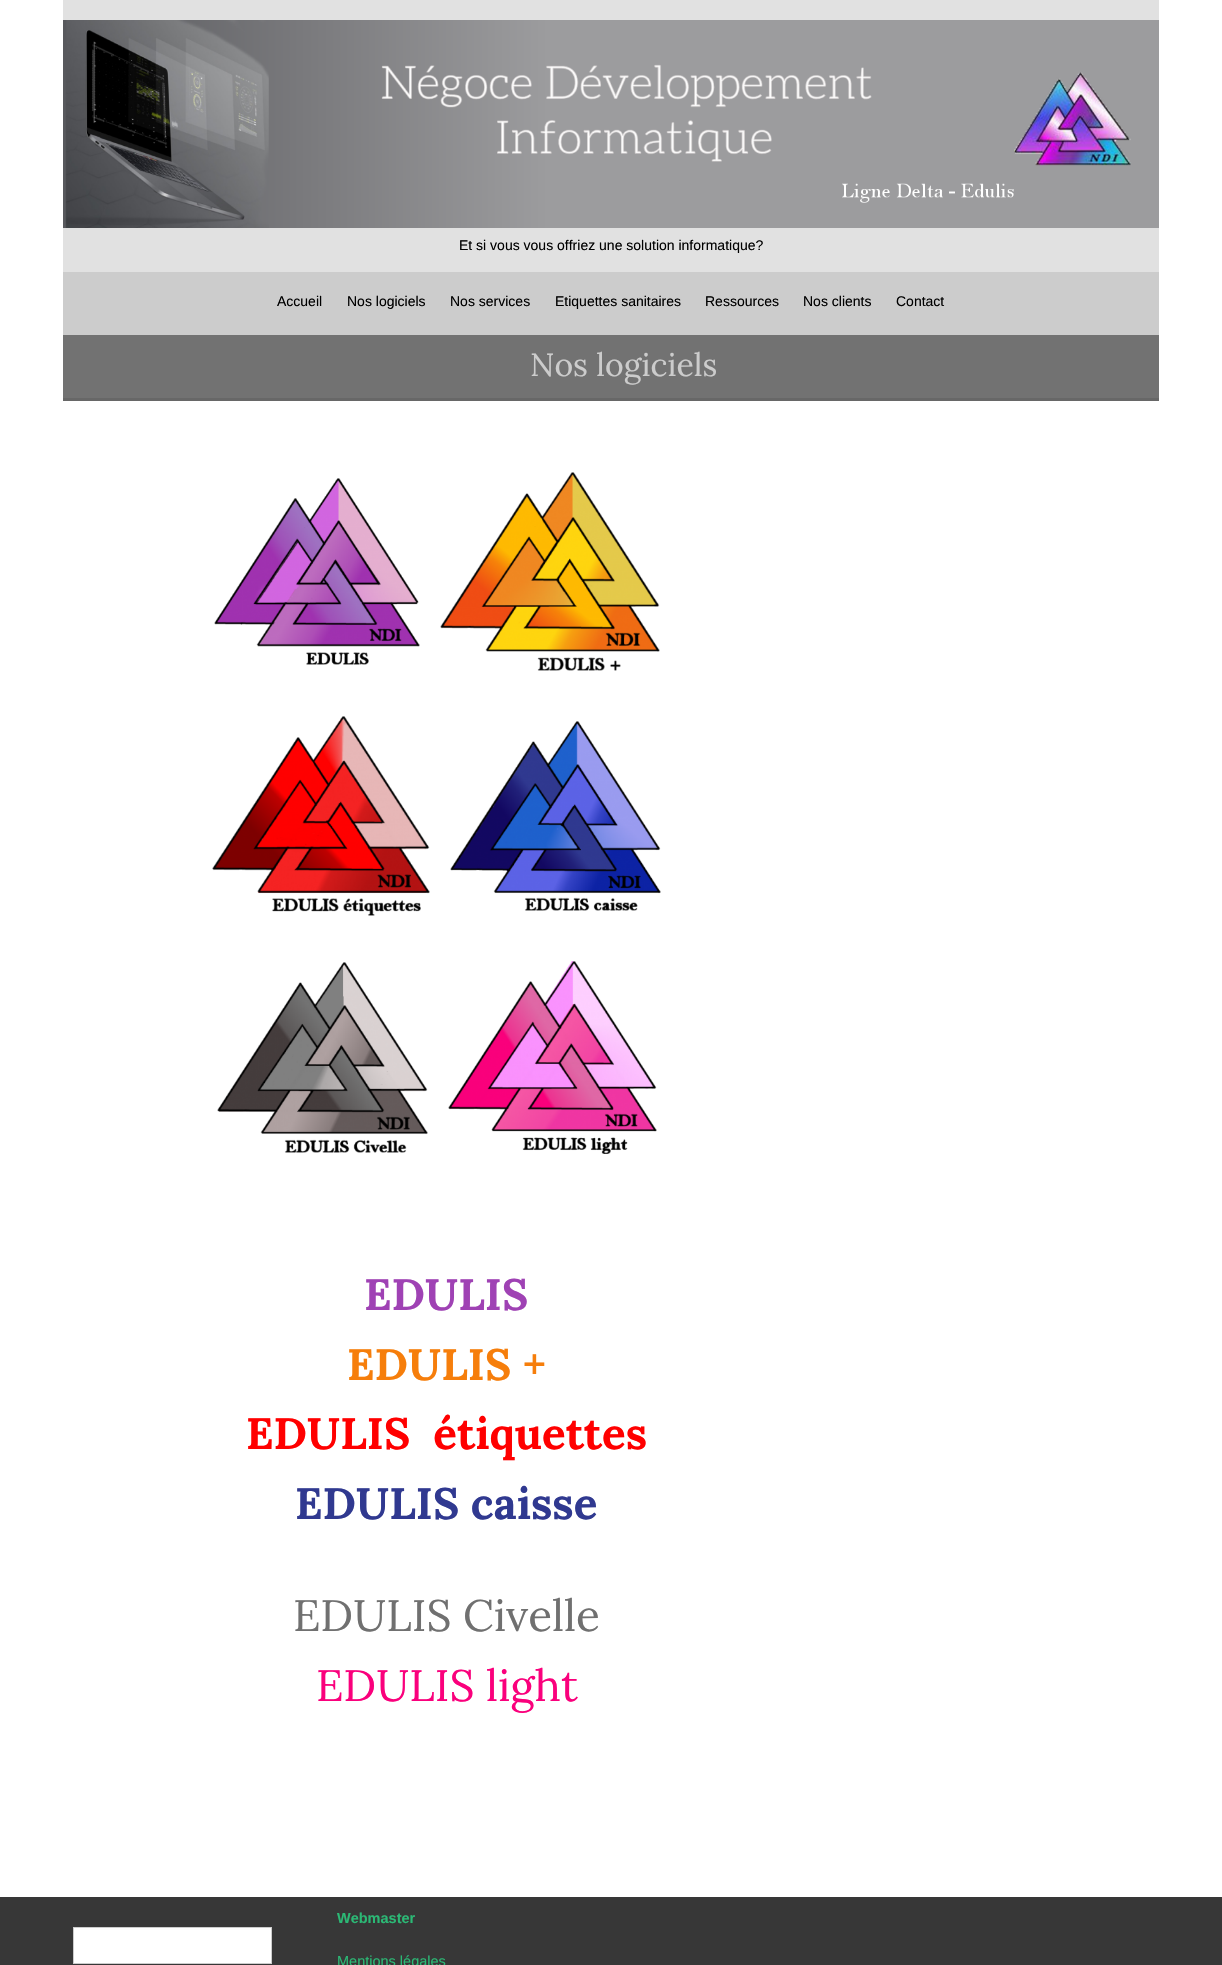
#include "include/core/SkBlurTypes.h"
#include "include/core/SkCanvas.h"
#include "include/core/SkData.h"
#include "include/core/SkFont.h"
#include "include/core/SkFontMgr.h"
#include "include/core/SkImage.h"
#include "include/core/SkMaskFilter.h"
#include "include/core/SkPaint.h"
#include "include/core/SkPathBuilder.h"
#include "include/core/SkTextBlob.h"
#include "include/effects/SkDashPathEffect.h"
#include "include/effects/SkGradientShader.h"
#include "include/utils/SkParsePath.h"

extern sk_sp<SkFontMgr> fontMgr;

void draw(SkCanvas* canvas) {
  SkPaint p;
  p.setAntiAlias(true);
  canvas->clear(SK_ColorWHITE);
  p.setColor(SkColorSetRGB(225, 225, 225));
  canvas->drawRect(SkRect::MakeLTRB(63, 0, 1159, 272), p);
  canvas->drawImageRect(SkImages::DeferredFromEncodedData(SkData::MakeFromFileName("images/1.png")), SkRect::MakeLTRB(63, 20, 1159, 228), SkSamplingOptions());
  p.setColor(SkColorSetRGB(204, 204, 204));
  canvas->drawRect(SkRect::MakeLTRB(63, 272, 1159, 335), p);
  p.setColor(SkColorSetRGB(114, 114, 114));
  canvas->drawRect(SkRect::MakeLTRB(63, 335, 1159, 398), p);
  p.setColor(SkColorSetRGB(103, 103, 103));
  canvas->drawRect(SkRect::MakeLTRB(63, 398, 1159, 401), p);
  canvas->drawImageRect(SkImages::DeferredFromEncodedData(SkData::MakeFromFileName("images/2.png")), SkRect::MakeLTRB(214, 478, 420, 665), SkSamplingOptions());
  canvas->drawImageRect(SkImages::DeferredFromEncodedData(SkData::MakeFromFileName("images/3.png")), SkRect::MakeLTRB(440, 472, 660, 671), SkSamplingOptions());
  canvas->drawImageRect(SkImages::DeferredFromEncodedData(SkData::MakeFromFileName("images/4.png")), SkRect::MakeLTRB(212, 716, 430, 916), SkSamplingOptions());
  canvas->drawImageRect(SkImages::DeferredFromEncodedData(SkData::MakeFromFileName("images/5.png")), SkRect::MakeLTRB(450, 721, 661, 911), SkSamplingOptions());
  canvas->drawImageRect(SkImages::DeferredFromEncodedData(SkData::MakeFromFileName("images/6.png")), SkRect::MakeLTRB(217, 962, 428, 1153), SkSamplingOptions());
  canvas->drawImageRect(SkImages::DeferredFromEncodedData(SkData::MakeFromFileName("images/7.png")), SkRect::MakeLTRB(448, 961, 657, 1154), SkSamplingOptions());
  p.setColor(SkColorSetRGB(55, 55, 55));
  canvas->drawRect(SkRect::MakeLTRB(0, 1897, 1222, 1965), p);
  p.setColor(SK_ColorWHITE);
  canvas->drawRect(SkRect::MakeLTRB(73.5f, 1927.5f, 271.5f, 1963.5f), p);
  p.setStyle(SkPaint::kStroke_Style);
  p.setStrokeWidth(1);
  p.setColor(SkColorSetRGB(204, 204, 204));
  canvas->drawRect(SkRect::MakeLTRB(73.5f, 1927.5f, 271.5f, 1963.5f), p);
  SkFont font1(fontMgr->matchFamilyStyle("Liberation Sans", SkFontStyle::Normal()), 14);
  font1.setSubpixel(true);
  p.setStyle(SkPaint::kFill_Style);
  p.setColor(SK_ColorBLACK);
  canvas->drawString("Et si vous vous offriez une solution informatique?", 459, 250, font1, p);
  canvas->drawString("Accueil", 277, 306, font1, p);
  canvas->drawString("Nos logiciels", 347, 306, font1, p);
  canvas->drawString("Nos services", 450, 306, font1, p);
  canvas->drawString("Etiquettes sanitaires", 555, 306, font1, p);
  canvas->drawString("Ressources", 705, 306, font1, p);
  canvas->drawString("Nos clients", 803, 306, font1, p);
  canvas->drawString("Contact", 896, 306, font1, p);
  SkFont font2(fontMgr->matchFamilyStyle("Lora", SkFontStyle::Normal()), 32);
  font2.setSubpixel(true);
  p.setColor(SkColorSetRGB(204, 204, 204));
  canvas->drawString("Nos logiciels", 530, 376, font2, p);
  SkFont font3(fontMgr->matchFamilyStyle("Lora", SkFontStyle::Bold()), 44);
  font3.setSubpixel(true);
  p.setColor(SkColorSetRGB(159, 66, 180));
  canvas->drawString("EDULIS", 364, 1310, font3, p);
  p.setColor(SkColorSetRGB(246, 126, 11));
  canvas->drawString("EDULIS +", 347, 1380, font3, p);
  p.setColor(SkColorSetRGB(255, 0, 0));
  canvas->drawString("EDULIS  étiquettes", 246, 1449, font3, p);
  p.setColor(SkColorSetRGB(48, 57, 144));
  canvas->drawString("EDULIS caisse", 295, 1519, font3, p);
  SkFont font4(fontMgr->matchFamilyStyle("Lora", SkFontStyle::Normal()), 44);
  font4.setSubpixel(true);
  p.setColor(SkColorSetRGB(112, 112, 112));
  canvas->drawString("EDULIS Civelle", 293, 1631, font4, p);
  p.setColor(SkColorSetRGB(250, 0, 124));
  canvas->drawString("EDULIS light", 316, 1701, font4, p);
  SkFont font5(fontMgr->matchFamilyStyle("Liberation Sans", SkFontStyle::Bold()), 14.5f);
  font5.setSubpixel(true);
  p.setColor(SkColorSetRGB(43, 185, 117));
  canvas->drawString("Webmaster", 337, 1923, font5, p);
  SkFont font6(fontMgr->matchFamilyStyle("Liberation Sans", SkFontStyle::Normal()), 14.5f);
  font6.setSubpixel(true);
  canvas->drawString("Mentions légales", 337, 1966, font6, p);
}
